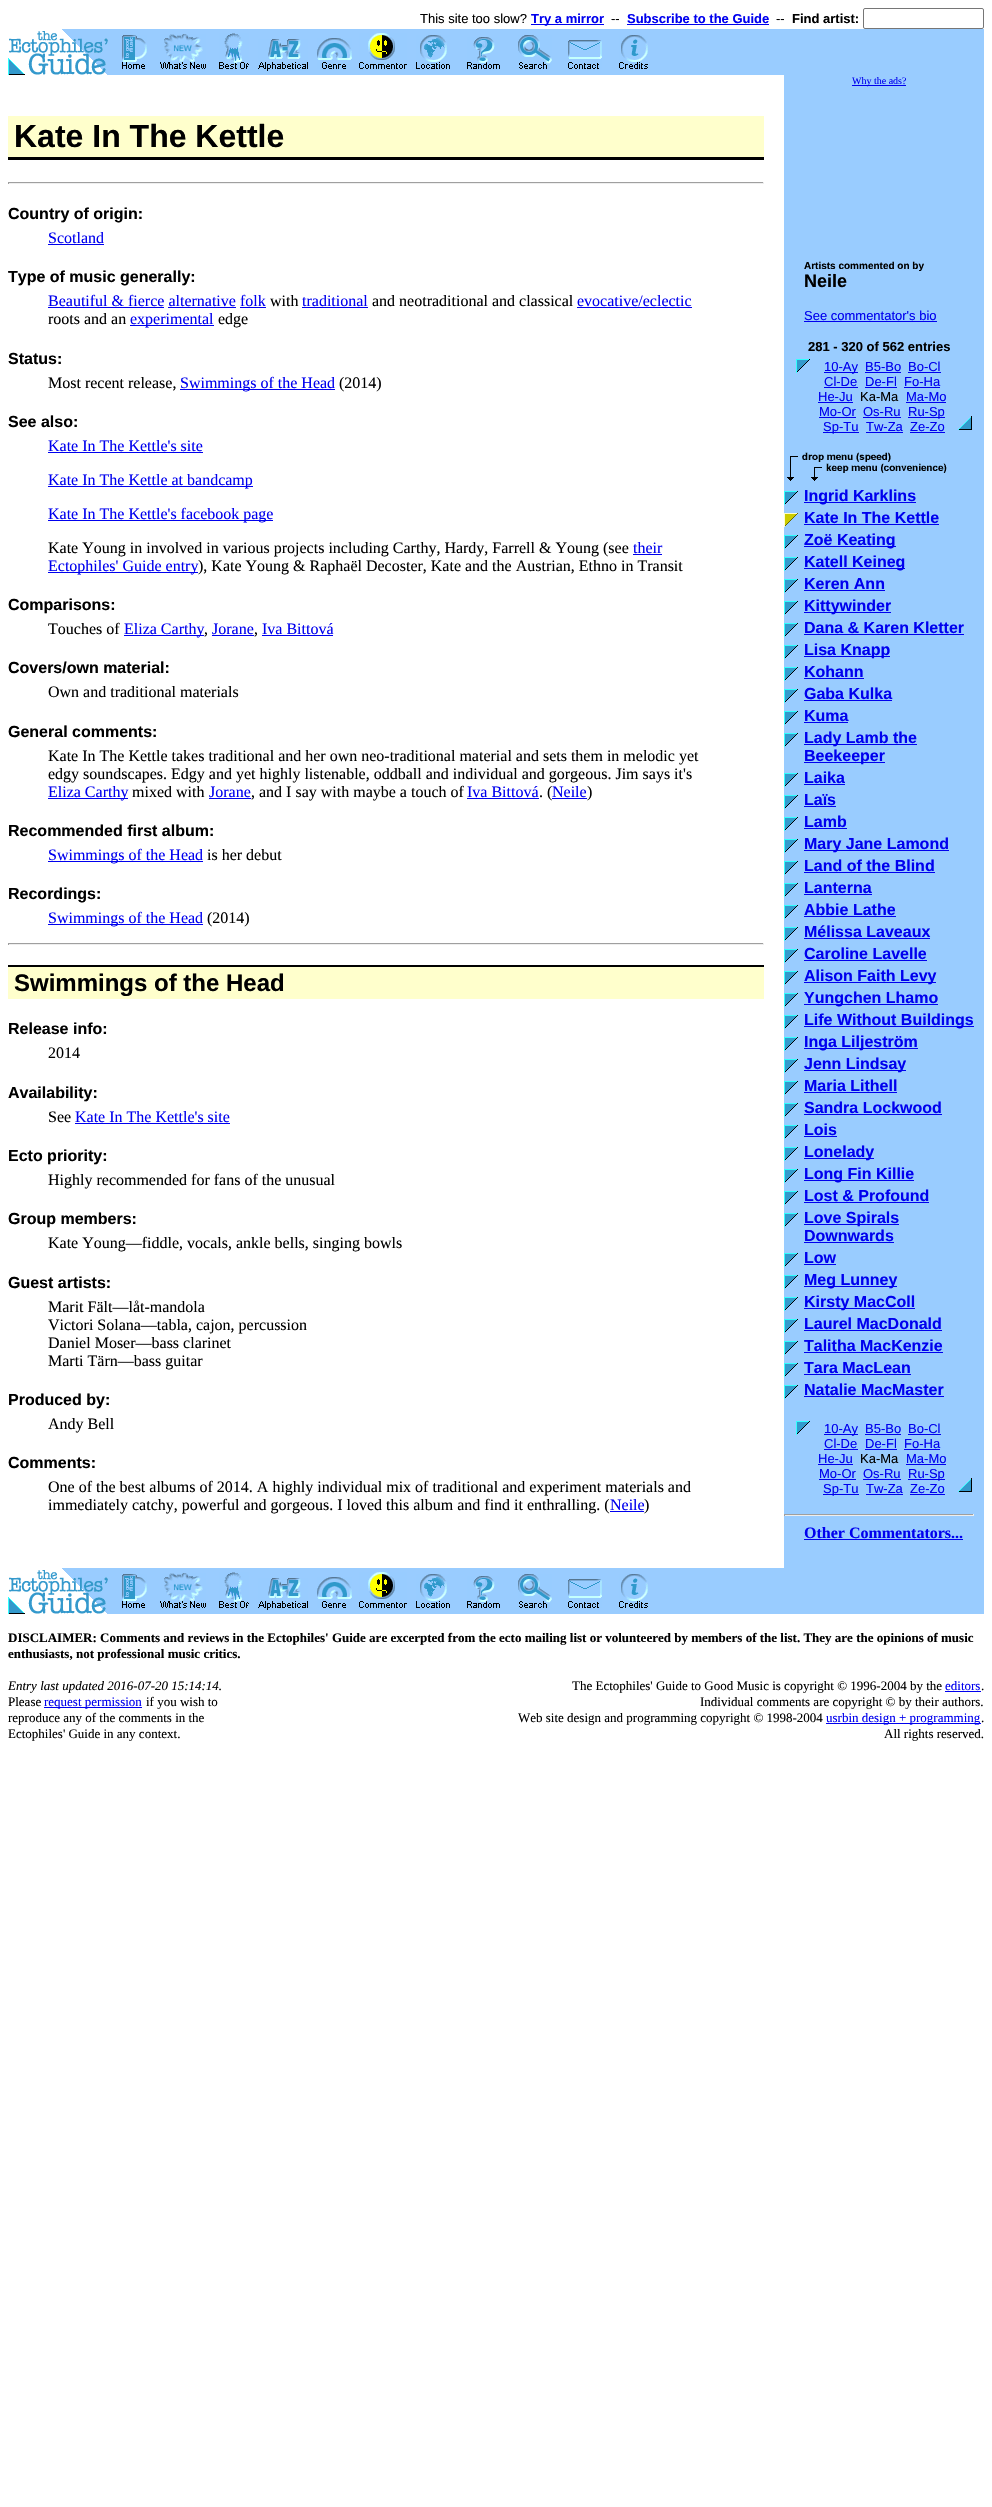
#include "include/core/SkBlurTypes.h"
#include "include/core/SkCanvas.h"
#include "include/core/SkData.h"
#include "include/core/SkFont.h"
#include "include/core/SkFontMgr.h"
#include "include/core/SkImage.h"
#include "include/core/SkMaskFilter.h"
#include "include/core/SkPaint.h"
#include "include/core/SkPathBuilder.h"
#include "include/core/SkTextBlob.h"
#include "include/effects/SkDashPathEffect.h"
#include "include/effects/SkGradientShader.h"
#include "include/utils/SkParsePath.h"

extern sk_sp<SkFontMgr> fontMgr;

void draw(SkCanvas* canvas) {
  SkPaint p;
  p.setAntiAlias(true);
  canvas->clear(SK_ColorWHITE);
  p.setColor(SkColorSetRGB(0, 0, 238));
  canvas->drawRect(SkRect::MakeLTRB(531, 24, 604, 25), p);
  canvas->drawRect(SkRect::MakeLTRB(627, 24, 769, 25), p);
  p.setStyle(SkPaint::kStroke_Style);
  p.setStrokeWidth(1);
  p.setColor(SkColorSetRGB(118, 118, 118));
  canvas->drawRoundRect(SkRect::MakeLTRB(863.5f, 8.5f, 983.5f, 28.5f), 1.5f, 1.5f, p);
  canvas->drawImageRect(SkImages::DeferredFromEncodedData(SkData::MakeFromFileName("images/1.png")), SkRect::MakeLTRB(8, 29, 108, 75), SkSamplingOptions());
  p.setStyle(SkPaint::kFill_Style);
  p.setColor(SkColorSetRGB(153, 204, 255));
  canvas->drawRect(SkRect::MakeLTRB(108, 29, 984, 75), p);
  canvas->drawImageRect(SkImages::DeferredFromEncodedData(SkData::MakeFromFileName("images/2.png")), SkRect::MakeLTRB(122, 35, 147, 69), SkSamplingOptions());
  canvas->drawImageRect(SkImages::DeferredFromEncodedData(SkData::MakeFromFileName("images/3.png")), SkRect::MakeLTRB(160, 34, 206, 69), SkSamplingOptions());
  canvas->drawImageRect(SkImages::DeferredFromEncodedData(SkData::MakeFromFileName("images/4.png")), SkRect::MakeLTRB(219, 33, 249, 69), SkSamplingOptions());
  canvas->drawImageRect(SkImages::DeferredFromEncodedData(SkData::MakeFromFileName("images/5.png")), SkRect::MakeLTRB(258, 39, 308, 71), SkSamplingOptions());
  canvas->drawImageRect(SkImages::DeferredFromEncodedData(SkData::MakeFromFileName("images/6.png")), SkRect::MakeLTRB(317, 38, 352, 69), SkSamplingOptions());
  canvas->drawImageRect(SkImages::DeferredFromEncodedData(SkData::MakeFromFileName("images/7.png")), SkRect::MakeLTRB(359, 33, 407, 69), SkSamplingOptions());
  canvas->drawImageRect(SkImages::DeferredFromEncodedData(SkData::MakeFromFileName("images/8.png")), SkRect::MakeLTRB(416, 35, 450, 69), SkSamplingOptions());
  canvas->drawImageRect(SkImages::DeferredFromEncodedData(SkData::MakeFromFileName("images/9.png")), SkRect::MakeLTRB(467, 37, 500, 69), SkSamplingOptions());
  canvas->drawImageRect(SkImages::DeferredFromEncodedData(SkData::MakeFromFileName("images/10.png")), SkRect::MakeLTRB(518, 35, 552, 69), SkSamplingOptions());
  canvas->drawImageRect(SkImages::DeferredFromEncodedData(SkData::MakeFromFileName("images/11.png")), SkRect::MakeLTRB(568, 40, 602, 69), SkSamplingOptions());
  canvas->drawImageRect(SkImages::DeferredFromEncodedData(SkData::MakeFromFileName("images/12.png")), SkRect::MakeLTRB(619, 35, 648, 69), SkSamplingOptions());
  p.setColor(SkColorSetRGB(255, 255, 204));
  canvas->drawRect(SkRect::MakeLTRB(8, 116, 764, 157), p);
  p.setColor(SK_ColorBLACK);
  canvas->drawRect(SkRect::MakeLTRB(8, 157, 764, 160), p);
  p.setColor(SkColorSetRGB(159, 159, 159));
  canvas->drawRect(SkRect::MakeLTRB(8, 182, 764, 183), p);
  p.setColor(SkColorSetRGB(238, 238, 238));
  canvas->drawRect(SkRect::MakeLTRB(763, 182, 764, 184), p);
  canvas->drawRect(SkRect::MakeLTRB(8, 183, 764, 184), p);
  p.setColor(SkColorSetRGB(159, 159, 159));
  canvas->drawRect(SkRect::MakeLTRB(8, 182, 9, 184), p);
  p.setColor(SkColorSetRGB(0, 0, 238));
  canvas->drawRect(SkRect::MakeLTRB(48, 244, 104, 245), p);
  canvas->drawRect(SkRect::MakeLTRB(48, 307, 164, 308), p);
  canvas->drawRect(SkRect::MakeLTRB(302, 307, 368, 308), p);
  canvas->drawRect(SkRect::MakeLTRB(577, 307, 692, 308), p);
  canvas->drawRect(SkRect::MakeLTRB(168, 307, 236, 308), p);
  canvas->drawRect(SkRect::MakeLTRB(240, 307, 266, 308), p);
  canvas->drawRect(SkRect::MakeLTRB(130, 325, 214, 326), p);
  canvas->drawRect(SkRect::MakeLTRB(180, 389, 335, 390), p);
  canvas->drawRect(SkRect::MakeLTRB(48, 452, 203, 453), p);
  canvas->drawRect(SkRect::MakeLTRB(48, 486, 253, 487), p);
  canvas->drawRect(SkRect::MakeLTRB(48, 520, 273, 521), p);
  canvas->drawRect(SkRect::MakeLTRB(633, 554, 662, 555), p);
  canvas->drawRect(SkRect::MakeLTRB(48, 572, 198, 573), p);
  canvas->drawRect(SkRect::MakeLTRB(124, 635, 204, 636), p);
  canvas->drawRect(SkRect::MakeLTRB(212, 635, 254, 636), p);
  canvas->drawRect(SkRect::MakeLTRB(262, 635, 333, 636), p);
  canvas->drawRect(SkRect::MakeLTRB(48, 798, 128, 799), p);
  canvas->drawRect(SkRect::MakeLTRB(209, 798, 251, 799), p);
  canvas->drawRect(SkRect::MakeLTRB(467, 798, 539, 799), p);
  canvas->drawRect(SkRect::MakeLTRB(552, 798, 587, 799), p);
  canvas->drawRect(SkRect::MakeLTRB(48, 861, 203, 862), p);
  canvas->drawRect(SkRect::MakeLTRB(48, 924, 203, 925), p);
  p.setColor(SkColorSetRGB(159, 159, 159));
  canvas->drawRect(SkRect::MakeLTRB(8, 943, 764, 944), p);
  p.setColor(SkColorSetRGB(238, 238, 238));
  canvas->drawRect(SkRect::MakeLTRB(763, 943, 764, 945), p);
  canvas->drawRect(SkRect::MakeLTRB(8, 944, 764, 945), p);
  p.setColor(SkColorSetRGB(159, 159, 159));
  canvas->drawRect(SkRect::MakeLTRB(8, 943, 9, 945), p);
  p.setColor(SkColorSetRGB(255, 255, 204));
  canvas->drawRect(SkRect::MakeLTRB(8, 967, 764, 999), p);
  p.setColor(SK_ColorBLACK);
  canvas->drawRect(SkRect::MakeLTRB(8, 965, 764, 967), p);
  p.setColor(SkColorSetRGB(0, 0, 238));
  canvas->drawRect(SkRect::MakeLTRB(75, 1123, 230, 1124), p);
  canvas->drawRect(SkRect::MakeLTRB(610, 1511, 644, 1512), p);
  p.setColor(SkColorSetRGB(153, 204, 255));
  canvas->drawRect(SkRect::MakeLTRB(784, 75, 984, 1568), p);
  p.setColor(SkColorSetRGB(0, 0, 238));
  canvas->drawRect(SkRect::MakeLTRB(852, 85, 906, 86), p);
  canvas->drawRect(SkRect::MakeLTRB(804, 321, 937, 322), p);
  canvas->drawImageRect(SkImages::DeferredFromEncodedData(SkData::MakeFromFileName("images/13.png")), SkRect::MakeLTRB(796, 359, 810, 373), SkSamplingOptions());
  canvas->drawRect(SkRect::MakeLTRB(824, 372, 858, 373), p);
  canvas->drawRect(SkRect::MakeLTRB(865, 372, 901, 373), p);
  canvas->drawRect(SkRect::MakeLTRB(908, 372, 941, 373), p);
  canvas->drawRect(SkRect::MakeLTRB(824, 387, 858, 388), p);
  canvas->drawRect(SkRect::MakeLTRB(865, 387, 897, 388), p);
  canvas->drawRect(SkRect::MakeLTRB(904, 387, 940, 388), p);
  canvas->drawRect(SkRect::MakeLTRB(818, 402, 853, 403), p);
  canvas->drawRect(SkRect::MakeLTRB(906, 402, 946, 403), p);
  canvas->drawRect(SkRect::MakeLTRB(819, 417, 856, 418), p);
  canvas->drawRect(SkRect::MakeLTRB(863, 417, 901, 418), p);
  canvas->drawRect(SkRect::MakeLTRB(908, 417, 945, 418), p);
  canvas->drawRect(SkRect::MakeLTRB(823, 432, 859, 433), p);
  canvas->drawRect(SkRect::MakeLTRB(866, 432, 903, 433), p);
  canvas->drawRect(SkRect::MakeLTRB(910, 432, 945, 433), p);
  canvas->drawImageRect(SkImages::DeferredFromEncodedData(SkData::MakeFromFileName("images/14.png")), SkRect::MakeLTRB(958, 416, 972, 430), SkSamplingOptions());
  canvas->drawImageRect(SkImages::DeferredFromEncodedData(SkData::MakeFromFileName("images/15.png")), SkRect::MakeLTRB(787, 452, 947, 481), SkSamplingOptions());
  canvas->drawImageRect(SkImages::DeferredFromEncodedData(SkData::MakeFromFileName("images/13.png")), SkRect::MakeLTRB(784, 491, 798, 505), SkSamplingOptions());
  canvas->drawRect(SkRect::MakeLTRB(804, 502, 916, 503), p);
  canvas->drawImageRect(SkImages::DeferredFromEncodedData(SkData::MakeFromFileName("images/16.png")), SkRect::MakeLTRB(784, 513, 798, 527), SkSamplingOptions());
  canvas->drawRect(SkRect::MakeLTRB(804, 524, 939, 525), p);
  canvas->drawImageRect(SkImages::DeferredFromEncodedData(SkData::MakeFromFileName("images/13.png")), SkRect::MakeLTRB(784, 535, 798, 549), SkSamplingOptions());
  canvas->drawRect(SkRect::MakeLTRB(804, 546, 896, 547), p);
  canvas->drawImageRect(SkImages::DeferredFromEncodedData(SkData::MakeFromFileName("images/13.png")), SkRect::MakeLTRB(784, 557, 798, 571), SkSamplingOptions());
  canvas->drawRect(SkRect::MakeLTRB(804, 568, 905, 569), p);
  canvas->drawImageRect(SkImages::DeferredFromEncodedData(SkData::MakeFromFileName("images/13.png")), SkRect::MakeLTRB(784, 579, 798, 593), SkSamplingOptions());
  canvas->drawRect(SkRect::MakeLTRB(804, 590, 885, 591), p);
  canvas->drawImageRect(SkImages::DeferredFromEncodedData(SkData::MakeFromFileName("images/13.png")), SkRect::MakeLTRB(784, 601, 798, 615), SkSamplingOptions());
  canvas->drawRect(SkRect::MakeLTRB(804, 612, 891, 613), p);
  canvas->drawImageRect(SkImages::DeferredFromEncodedData(SkData::MakeFromFileName("images/13.png")), SkRect::MakeLTRB(784, 623, 798, 637), SkSamplingOptions());
  canvas->drawRect(SkRect::MakeLTRB(804, 634, 964, 635), p);
  canvas->drawImageRect(SkImages::DeferredFromEncodedData(SkData::MakeFromFileName("images/13.png")), SkRect::MakeLTRB(784, 645, 798, 659), SkSamplingOptions());
  canvas->drawRect(SkRect::MakeLTRB(804, 656, 890, 657), p);
  canvas->drawImageRect(SkImages::DeferredFromEncodedData(SkData::MakeFromFileName("images/13.png")), SkRect::MakeLTRB(784, 667, 798, 681), SkSamplingOptions());
  canvas->drawRect(SkRect::MakeLTRB(804, 678, 864, 679), p);
  canvas->drawImageRect(SkImages::DeferredFromEncodedData(SkData::MakeFromFileName("images/13.png")), SkRect::MakeLTRB(784, 689, 798, 703), SkSamplingOptions());
  canvas->drawRect(SkRect::MakeLTRB(804, 700, 892, 701), p);
  canvas->drawImageRect(SkImages::DeferredFromEncodedData(SkData::MakeFromFileName("images/13.png")), SkRect::MakeLTRB(784, 711, 798, 725), SkSamplingOptions());
  canvas->drawRect(SkRect::MakeLTRB(804, 722, 848, 723), p);
  canvas->drawImageRect(SkImages::DeferredFromEncodedData(SkData::MakeFromFileName("images/13.png")), SkRect::MakeLTRB(784, 733, 798, 747), SkSamplingOptions());
  canvas->drawRect(SkRect::MakeLTRB(804, 744, 917, 745), p);
  canvas->drawRect(SkRect::MakeLTRB(804, 762, 885, 763), p);
  canvas->drawImageRect(SkImages::DeferredFromEncodedData(SkData::MakeFromFileName("images/13.png")), SkRect::MakeLTRB(784, 773, 798, 787), SkSamplingOptions());
  canvas->drawRect(SkRect::MakeLTRB(804, 784, 845, 785), p);
  canvas->drawImageRect(SkImages::DeferredFromEncodedData(SkData::MakeFromFileName("images/13.png")), SkRect::MakeLTRB(784, 795, 798, 809), SkSamplingOptions());
  canvas->drawRect(SkRect::MakeLTRB(804, 806, 836, 807), p);
  canvas->drawImageRect(SkImages::DeferredFromEncodedData(SkData::MakeFromFileName("images/13.png")), SkRect::MakeLTRB(784, 817, 798, 831), SkSamplingOptions());
  canvas->drawRect(SkRect::MakeLTRB(804, 828, 847, 829), p);
  canvas->drawImageRect(SkImages::DeferredFromEncodedData(SkData::MakeFromFileName("images/13.png")), SkRect::MakeLTRB(784, 839, 798, 853), SkSamplingOptions());
  canvas->drawRect(SkRect::MakeLTRB(804, 850, 949, 851), p);
  canvas->drawImageRect(SkImages::DeferredFromEncodedData(SkData::MakeFromFileName("images/13.png")), SkRect::MakeLTRB(784, 861, 798, 875), SkSamplingOptions());
  canvas->drawRect(SkRect::MakeLTRB(804, 872, 935, 873), p);
  canvas->drawImageRect(SkImages::DeferredFromEncodedData(SkData::MakeFromFileName("images/13.png")), SkRect::MakeLTRB(784, 883, 798, 897), SkSamplingOptions());
  canvas->drawRect(SkRect::MakeLTRB(804, 894, 872, 895), p);
  canvas->drawImageRect(SkImages::DeferredFromEncodedData(SkData::MakeFromFileName("images/13.png")), SkRect::MakeLTRB(784, 905, 798, 919), SkSamplingOptions());
  canvas->drawRect(SkRect::MakeLTRB(804, 916, 896, 917), p);
  canvas->drawImageRect(SkImages::DeferredFromEncodedData(SkData::MakeFromFileName("images/13.png")), SkRect::MakeLTRB(784, 927, 798, 941), SkSamplingOptions());
  canvas->drawRect(SkRect::MakeLTRB(804, 938, 930, 939), p);
  canvas->drawImageRect(SkImages::DeferredFromEncodedData(SkData::MakeFromFileName("images/13.png")), SkRect::MakeLTRB(784, 949, 798, 963), SkSamplingOptions());
  canvas->drawRect(SkRect::MakeLTRB(804, 960, 927, 961), p);
  canvas->drawImageRect(SkImages::DeferredFromEncodedData(SkData::MakeFromFileName("images/13.png")), SkRect::MakeLTRB(784, 971, 798, 985), SkSamplingOptions());
  canvas->drawRect(SkRect::MakeLTRB(804, 982, 936, 983), p);
  canvas->drawImageRect(SkImages::DeferredFromEncodedData(SkData::MakeFromFileName("images/13.png")), SkRect::MakeLTRB(784, 993, 798, 1007), SkSamplingOptions());
  canvas->drawRect(SkRect::MakeLTRB(804, 1004, 938, 1005), p);
  canvas->drawImageRect(SkImages::DeferredFromEncodedData(SkData::MakeFromFileName("images/13.png")), SkRect::MakeLTRB(784, 1015, 798, 1029), SkSamplingOptions());
  canvas->drawRect(SkRect::MakeLTRB(804, 1026, 974, 1027), p);
  canvas->drawImageRect(SkImages::DeferredFromEncodedData(SkData::MakeFromFileName("images/13.png")), SkRect::MakeLTRB(784, 1037, 798, 1051), SkSamplingOptions());
  canvas->drawRect(SkRect::MakeLTRB(804, 1048, 918, 1049), p);
  canvas->drawImageRect(SkImages::DeferredFromEncodedData(SkData::MakeFromFileName("images/13.png")), SkRect::MakeLTRB(784, 1059, 798, 1073), SkSamplingOptions());
  canvas->drawRect(SkRect::MakeLTRB(804, 1070, 906, 1071), p);
  canvas->drawImageRect(SkImages::DeferredFromEncodedData(SkData::MakeFromFileName("images/13.png")), SkRect::MakeLTRB(784, 1081, 798, 1095), SkSamplingOptions());
  canvas->drawRect(SkRect::MakeLTRB(804, 1092, 897, 1093), p);
  canvas->drawImageRect(SkImages::DeferredFromEncodedData(SkData::MakeFromFileName("images/13.png")), SkRect::MakeLTRB(784, 1103, 798, 1117), SkSamplingOptions());
  canvas->drawRect(SkRect::MakeLTRB(804, 1114, 942, 1115), p);
  canvas->drawImageRect(SkImages::DeferredFromEncodedData(SkData::MakeFromFileName("images/13.png")), SkRect::MakeLTRB(784, 1125, 798, 1139), SkSamplingOptions());
  canvas->drawRect(SkRect::MakeLTRB(804, 1136, 837, 1137), p);
  canvas->drawImageRect(SkImages::DeferredFromEncodedData(SkData::MakeFromFileName("images/13.png")), SkRect::MakeLTRB(784, 1147, 798, 1161), SkSamplingOptions());
  canvas->drawRect(SkRect::MakeLTRB(804, 1158, 874, 1159), p);
  canvas->drawImageRect(SkImages::DeferredFromEncodedData(SkData::MakeFromFileName("images/13.png")), SkRect::MakeLTRB(784, 1169, 798, 1183), SkSamplingOptions());
  canvas->drawRect(SkRect::MakeLTRB(804, 1180, 914, 1181), p);
  canvas->drawImageRect(SkImages::DeferredFromEncodedData(SkData::MakeFromFileName("images/13.png")), SkRect::MakeLTRB(784, 1191, 798, 1205), SkSamplingOptions());
  canvas->drawRect(SkRect::MakeLTRB(804, 1202, 929, 1203), p);
  canvas->drawImageRect(SkImages::DeferredFromEncodedData(SkData::MakeFromFileName("images/13.png")), SkRect::MakeLTRB(784, 1213, 798, 1227), SkSamplingOptions());
  canvas->drawRect(SkRect::MakeLTRB(804, 1224, 899, 1225), p);
  canvas->drawRect(SkRect::MakeLTRB(804, 1242, 894, 1243), p);
  canvas->drawImageRect(SkImages::DeferredFromEncodedData(SkData::MakeFromFileName("images/13.png")), SkRect::MakeLTRB(784, 1253, 798, 1267), SkSamplingOptions());
  canvas->drawRect(SkRect::MakeLTRB(804, 1264, 836, 1265), p);
  canvas->drawImageRect(SkImages::DeferredFromEncodedData(SkData::MakeFromFileName("images/13.png")), SkRect::MakeLTRB(784, 1275, 798, 1289), SkSamplingOptions());
  canvas->drawRect(SkRect::MakeLTRB(804, 1286, 897, 1287), p);
  canvas->drawImageRect(SkImages::DeferredFromEncodedData(SkData::MakeFromFileName("images/13.png")), SkRect::MakeLTRB(784, 1297, 798, 1311), SkSamplingOptions());
  canvas->drawRect(SkRect::MakeLTRB(804, 1308, 915, 1309), p);
  canvas->drawImageRect(SkImages::DeferredFromEncodedData(SkData::MakeFromFileName("images/13.png")), SkRect::MakeLTRB(784, 1319, 798, 1333), SkSamplingOptions());
  canvas->drawRect(SkRect::MakeLTRB(804, 1330, 942, 1331), p);
  canvas->drawImageRect(SkImages::DeferredFromEncodedData(SkData::MakeFromFileName("images/13.png")), SkRect::MakeLTRB(784, 1341, 798, 1355), SkSamplingOptions());
  canvas->drawRect(SkRect::MakeLTRB(804, 1352, 943, 1353), p);
  canvas->drawImageRect(SkImages::DeferredFromEncodedData(SkData::MakeFromFileName("images/13.png")), SkRect::MakeLTRB(784, 1363, 798, 1377), SkSamplingOptions());
  canvas->drawRect(SkRect::MakeLTRB(804, 1374, 911, 1375), p);
  canvas->drawImageRect(SkImages::DeferredFromEncodedData(SkData::MakeFromFileName("images/13.png")), SkRect::MakeLTRB(784, 1385, 798, 1399), SkSamplingOptions());
  canvas->drawRect(SkRect::MakeLTRB(804, 1396, 944, 1397), p);
  canvas->drawImageRect(SkImages::DeferredFromEncodedData(SkData::MakeFromFileName("images/13.png")), SkRect::MakeLTRB(796, 1421, 810, 1435), SkSamplingOptions());
  canvas->drawRect(SkRect::MakeLTRB(824, 1434, 858, 1435), p);
  canvas->drawRect(SkRect::MakeLTRB(865, 1434, 901, 1435), p);
  canvas->drawRect(SkRect::MakeLTRB(908, 1434, 941, 1435), p);
  canvas->drawRect(SkRect::MakeLTRB(824, 1449, 858, 1450), p);
  canvas->drawRect(SkRect::MakeLTRB(865, 1449, 897, 1450), p);
  canvas->drawRect(SkRect::MakeLTRB(904, 1449, 940, 1450), p);
  canvas->drawRect(SkRect::MakeLTRB(818, 1464, 853, 1465), p);
  canvas->drawRect(SkRect::MakeLTRB(906, 1464, 946, 1465), p);
  canvas->drawRect(SkRect::MakeLTRB(819, 1479, 856, 1480), p);
  canvas->drawRect(SkRect::MakeLTRB(863, 1479, 901, 1480), p);
  canvas->drawRect(SkRect::MakeLTRB(908, 1479, 945, 1480), p);
  canvas->drawRect(SkRect::MakeLTRB(823, 1494, 859, 1495), p);
  canvas->drawRect(SkRect::MakeLTRB(866, 1494, 903, 1495), p);
  canvas->drawRect(SkRect::MakeLTRB(910, 1494, 945, 1495), p);
  canvas->drawImageRect(SkImages::DeferredFromEncodedData(SkData::MakeFromFileName("images/14.png")), SkRect::MakeLTRB(958, 1478, 972, 1492), SkSamplingOptions());
  p.setColor(SkColorSetRGB(159, 159, 159));
  canvas->drawRect(SkRect::MakeLTRB(784, 1514, 974, 1515), p);
  p.setColor(SkColorSetRGB(238, 238, 238));
  canvas->drawRect(SkRect::MakeLTRB(973, 1514, 974, 1516), p);
  canvas->drawRect(SkRect::MakeLTRB(784, 1515, 974, 1516), p);
  p.setColor(SkColorSetRGB(159, 159, 159));
  canvas->drawRect(SkRect::MakeLTRB(784, 1514, 785, 1516), p);
  p.setColor(SkColorSetRGB(0, 0, 238));
  canvas->drawRect(SkRect::MakeLTRB(804, 1539, 963, 1540), p);
  canvas->drawImageRect(SkImages::DeferredFromEncodedData(SkData::MakeFromFileName("images/1.png")), SkRect::MakeLTRB(8, 1568, 108, 1614), SkSamplingOptions());
  p.setColor(SkColorSetRGB(153, 204, 255));
  canvas->drawRect(SkRect::MakeLTRB(108, 1568, 984, 1614), p);
  canvas->drawImageRect(SkImages::DeferredFromEncodedData(SkData::MakeFromFileName("images/2.png")), SkRect::MakeLTRB(122, 1574, 147, 1608), SkSamplingOptions());
  canvas->drawImageRect(SkImages::DeferredFromEncodedData(SkData::MakeFromFileName("images/3.png")), SkRect::MakeLTRB(160, 1573, 206, 1608), SkSamplingOptions());
  canvas->drawImageRect(SkImages::DeferredFromEncodedData(SkData::MakeFromFileName("images/4.png")), SkRect::MakeLTRB(219, 1572, 249, 1608), SkSamplingOptions());
  canvas->drawImageRect(SkImages::DeferredFromEncodedData(SkData::MakeFromFileName("images/5.png")), SkRect::MakeLTRB(258, 1578, 308, 1610), SkSamplingOptions());
  canvas->drawImageRect(SkImages::DeferredFromEncodedData(SkData::MakeFromFileName("images/6.png")), SkRect::MakeLTRB(317, 1577, 352, 1608), SkSamplingOptions());
  canvas->drawImageRect(SkImages::DeferredFromEncodedData(SkData::MakeFromFileName("images/7.png")), SkRect::MakeLTRB(359, 1572, 407, 1608), SkSamplingOptions());
  canvas->drawImageRect(SkImages::DeferredFromEncodedData(SkData::MakeFromFileName("images/8.png")), SkRect::MakeLTRB(416, 1574, 450, 1608), SkSamplingOptions());
  canvas->drawImageRect(SkImages::DeferredFromEncodedData(SkData::MakeFromFileName("images/9.png")), SkRect::MakeLTRB(467, 1576, 500, 1608), SkSamplingOptions());
  canvas->drawImageRect(SkImages::DeferredFromEncodedData(SkData::MakeFromFileName("images/10.png")), SkRect::MakeLTRB(518, 1574, 552, 1608), SkSamplingOptions());
  canvas->drawImageRect(SkImages::DeferredFromEncodedData(SkData::MakeFromFileName("images/11.png")), SkRect::MakeLTRB(568, 1579, 602, 1608), SkSamplingOptions());
  canvas->drawImageRect(SkImages::DeferredFromEncodedData(SkData::MakeFromFileName("images/12.png")), SkRect::MakeLTRB(619, 1574, 648, 1608), SkSamplingOptions());
  p.setColor(SkColorSetRGB(0, 0, 238));
  canvas->drawRect(SkRect::MakeLTRB(44, 1707, 142, 1708), p);
  canvas->drawRect(SkRect::MakeLTRB(945, 1691, 981, 1692), p);
  canvas->drawRect(SkRect::MakeLTRB(826, 1723, 981, 1724), p);
  SkFont font1(fontMgr->matchFamilyStyle("Liberation Sans", SkFontStyle::Normal()), 13);
  font1.setSubpixel(true);
  p.setColor(SK_ColorBLACK);
  canvas->drawString("This site too slow?", 420, 23, font1, p);
  SkFont font2(fontMgr->matchFamilyStyle("Liberation Sans", SkFontStyle::Bold()), 13);
  font2.setSubpixel(true);
  p.setColor(SkColorSetRGB(0, 0, 238));
  canvas->drawString("Try a mirror", 531, 23, font2, p);
  p.setColor(SK_ColorBLACK);
  canvas->drawString("--", 611, 23, font1, p);
  p.setColor(SkColorSetRGB(0, 0, 238));
  canvas->drawString("Subscribe to the Guide", 627, 23, font2, p);
  p.setColor(SK_ColorBLACK);
  canvas->drawString("--", 776, 23, font1, p);
  canvas->drawString("Find artist:", 792, 23, font2, p);
  SkFont font3(fontMgr->matchFamilyStyle("Liberation Sans", SkFontStyle::Bold()), 32);
  font3.setSubpixel(true);
  canvas->drawString("Kate In The Kettle", 14, 147, font3, p);
  SkFont font4(fontMgr->matchFamilyStyle("Liberation Sans", SkFontStyle::Bold()), 16);
  font4.setSubpixel(true);
  canvas->drawString("Country of origin:", 8, 219, font4, p);
  SkFont font5(fontMgr->matchFamilyStyle("Liberation Serif", SkFontStyle::Normal()), 16);
  font5.setSubpixel(true);
  p.setColor(SkColorSetRGB(0, 0, 238));
  canvas->drawString("Scotland", 48, 243, font5, p);
  p.setColor(SK_ColorBLACK);
  canvas->drawString("Type of music generally:", 8, 282, font4, p);
  p.setColor(SkColorSetRGB(0, 0, 238));
  canvas->drawString("Beautiful & fierce alternative folk", 48, 306, font5, p);
  p.setColor(SK_ColorBLACK);
  canvas->drawString("with", 270, 306, font5, p);
  p.setColor(SkColorSetRGB(0, 0, 238));
  canvas->drawString("traditional", 302, 306, font5, p);
  p.setColor(SK_ColorBLACK);
  canvas->drawString("and neotraditional and classical", 372, 306, font5, p);
  p.setColor(SkColorSetRGB(0, 0, 238));
  canvas->drawString("evocative/eclectic", 577, 306, font5, p);
  p.setColor(SK_ColorBLACK);
  canvas->drawString("roots and an", 48, 324, font5, p);
  p.setColor(SkColorSetRGB(0, 0, 238));
  canvas->drawString("experimental", 130, 324, font5, p);
  p.setColor(SK_ColorBLACK);
  canvas->drawString("edge", 218, 324, font5, p);
  canvas->drawString("Status:", 8, 364, font4, p);
  canvas->drawString("Most recent release,", 48, 388, font5, p);
  p.setColor(SkColorSetRGB(0, 0, 238));
  canvas->drawString("Swimmings of the Head", 180, 388, font5, p);
  p.setColor(SK_ColorBLACK);
  canvas->drawString("(2014)", 339, 388, font5, p);
  canvas->drawString("See also:", 8, 427, font4, p);
  p.setColor(SkColorSetRGB(0, 0, 238));
  canvas->drawString("Kate In The Kettle's site", 48, 451, font5, p);
  canvas->drawString("Kate In The Kettle at bandcamp", 48, 485, font5, p);
  canvas->drawString("Kate In The Kettle's facebook page", 48, 519, font5, p);
  p.setColor(SK_ColorBLACK);
  canvas->drawString("Kate Young in involved in various projects including Carthy, Hardy, Farrell & Young (see", 48, 553, font5, p);
  p.setColor(SkColorSetRGB(0, 0, 238));
  canvas->drawString("their", 633, 553, font5, p);
  canvas->drawString("Ectophiles' Guide entry", 48, 571, font5, p);
  p.setColor(SK_ColorBLACK);
  canvas->drawString("), Kate Young & Raphaël Decoster, Kate and the Austrian, Ethno in Transit", 198, 571, font5, p);
  canvas->drawString("Comparisons:", 8, 610, font4, p);
  canvas->drawString("Touches of", 48, 634, font5, p);
  p.setColor(SkColorSetRGB(0, 0, 238));
  canvas->drawString("Eliza Carthy", 124, 634, font5, p);
  p.setColor(SK_ColorBLACK);
  canvas->drawString(",", 204, 634, font5, p);
  p.setColor(SkColorSetRGB(0, 0, 238));
  canvas->drawString("Jorane", 212, 634, font5, p);
  p.setColor(SK_ColorBLACK);
  canvas->drawString(",", 254, 634, font5, p);
  p.setColor(SkColorSetRGB(0, 0, 238));
  canvas->drawString("Iva Bittová", 262, 634, font5, p);
  p.setColor(SK_ColorBLACK);
  canvas->drawString("Covers/own material:", 8, 673, font4, p);
  canvas->drawString("Own and traditional materials", 48, 697, font5, p);
  canvas->drawString("General comments:", 8, 737, font4, p);
  canvas->drawString("Kate In The Kettle takes traditional and her own neo-traditional material and sets them in melodic yet", 48, 761, font5, p);
  canvas->drawString("edgy soundscapes. Edgy and yet highly listenable, oddball and individual and gorgeous. Jim says it's", 48, 779, font5, p);
  p.setColor(SkColorSetRGB(0, 0, 238));
  canvas->drawString("Eliza Carthy", 48, 797, font5, p);
  p.setColor(SK_ColorBLACK);
  canvas->drawString("mixed with", 132, 797, font5, p);
  p.setColor(SkColorSetRGB(0, 0, 238));
  canvas->drawString("Jorane", 209, 797, font5, p);
  p.setColor(SK_ColorBLACK);
  canvas->drawString(", and I say with maybe a touch of", 251, 797, font5, p);
  p.setColor(SkColorSetRGB(0, 0, 238));
  canvas->drawString("Iva Bittová", 467, 797, font5, p);
  p.setColor(SK_ColorBLACK);
  canvas->drawString(". (", 539, 797, font5, p);
  p.setColor(SkColorSetRGB(0, 0, 238));
  canvas->drawString("Neile", 552, 797, font5, p);
  p.setColor(SK_ColorBLACK);
  canvas->drawString(")", 587, 797, font5, p);
  canvas->drawString("Recommended first album:", 8, 836, font4, p);
  p.setColor(SkColorSetRGB(0, 0, 238));
  canvas->drawString("Swimmings of the Head", 48, 860, font5, p);
  p.setColor(SK_ColorBLACK);
  canvas->drawString("is her debut", 207, 860, font5, p);
  canvas->drawString("Recordings:", 8, 899, font4, p);
  p.setColor(SkColorSetRGB(0, 0, 238));
  canvas->drawString("Swimmings of the Head", 48, 923, font5, p);
  p.setColor(SK_ColorBLACK);
  canvas->drawString("(2014)", 207, 923, font5, p);
  SkFont font6(fontMgr->matchFamilyStyle("Liberation Sans", SkFontStyle::Bold()), 24);
  font6.setSubpixel(true);
  canvas->drawString("Swimmings of the Head", 14, 991, font6, p);
  canvas->drawString("Release info:", 8, 1034, font4, p);
  canvas->drawString("2014", 48, 1058, font5, p);
  canvas->drawString("Availability:", 8, 1098, font4, p);
  canvas->drawString("See", 48, 1122, font5, p);
  p.setColor(SkColorSetRGB(0, 0, 238));
  canvas->drawString("Kate In The Kettle's site", 75, 1122, font5, p);
  p.setColor(SK_ColorBLACK);
  canvas->drawString("Ecto priority:", 8, 1161, font4, p);
  canvas->drawString("Highly recommended for fans of the unusual", 48, 1185, font5, p);
  canvas->drawString("Group members:", 8, 1224, font4, p);
  canvas->drawString("Kate Young—fiddle, vocals, ankle bells, singing bowls", 48, 1248, font5, p);
  canvas->drawString("Guest artists:", 8, 1288, font4, p);
  canvas->drawString("Marit Fält—låt-mandola", 48, 1312, font5, p);
  canvas->drawString("Victori Solana—tabla, cajon, percussion", 48, 1330, font5, p);
  canvas->drawString("Daniel Moser—bass clarinet", 48, 1348, font5, p);
  canvas->drawString("Marti Tärn—bass guitar", 48, 1366, font5, p);
  canvas->drawString("Produced by:", 8, 1405, font4, p);
  canvas->drawString("Andy Bell", 48, 1429, font5, p);
  canvas->drawString("Comments:", 8, 1468, font4, p);
  canvas->drawString("One of the best albums of 2014. A highly individual mix of traditional and experiment materials and", 48, 1492, font5, p);
  canvas->drawString("immediately catchy, powerful and gorgeous. I loved this album and find it enthralling. (", 48, 1510, font5, p);
  p.setColor(SkColorSetRGB(0, 0, 238));
  canvas->drawString("Neile", 610, 1510, font5, p);
  p.setColor(SK_ColorBLACK);
  canvas->drawString(")", 644, 1510, font5, p);
  SkFont font7(fontMgr->matchFamilyStyle("Liberation Serif", SkFontStyle::Normal()), 10);
  font7.setSubpixel(true);
  p.setColor(SkColorSetRGB(0, 0, 238));
  canvas->drawString("Why the ads?", 852, 84, font7, p);
  SkFont font8(fontMgr->matchFamilyStyle("Liberation Sans", SkFontStyle::Bold()), 10);
  font8.setSubpixel(true);
  p.setColor(SK_ColorBLACK);
  canvas->drawString("Artists commented on by", 804, 269, font8, p);
  SkFont font9(fontMgr->matchFamilyStyle("Liberation Sans", SkFontStyle::Bold()), 18);
  font9.setSubpixel(true);
  canvas->drawString("Neile", 804, 287, font9, p);
  p.setColor(SkColorSetRGB(0, 0, 238));
  canvas->drawString("See commentator's bio", 804, 320, font1, p);
  p.setColor(SK_ColorBLACK);
  canvas->drawString("281 - 320 of 562 entries", 808, 351, font2, p);
  p.setColor(SkColorSetRGB(0, 0, 238));
  canvas->drawString("10-Ay", 824, 371, font1, p);
  canvas->drawString("B5-Bo", 865, 371, font1, p);
  canvas->drawString("Bo-Cl", 908, 371, font1, p);
  canvas->drawString("Cl-De", 824, 386, font1, p);
  canvas->drawString("De-Fl", 865, 386, font1, p);
  canvas->drawString("Fo-Ha", 904, 386, font1, p);
  canvas->drawString("He-Ju", 818, 401, font1, p);
  p.setColor(SK_ColorBLACK);
  canvas->drawString("Ka-Ma", 860, 401, font1, p);
  p.setColor(SkColorSetRGB(0, 0, 238));
  canvas->drawString("Ma-Mo", 906, 401, font1, p);
  canvas->drawString("Mo-Or", 819, 416, font1, p);
  canvas->drawString("Os-Ru", 863, 416, font1, p);
  canvas->drawString("Ru-Sp", 908, 416, font1, p);
  canvas->drawString("Sp-Tu", 823, 431, font1, p);
  canvas->drawString("Tw-Za", 866, 431, font1, p);
  canvas->drawString("Ze-Zo", 910, 431, font1, p);
  canvas->drawString("Ingrid Karklins", 804, 501, font4, p);
  canvas->drawString("Kate In The Kettle", 804, 523, font4, p);
  canvas->drawString("Zoë Keating", 804, 545, font4, p);
  canvas->drawString("Katell Keineg", 804, 567, font4, p);
  canvas->drawString("Keren Ann", 804, 589, font4, p);
  canvas->drawString("Kittywinder", 804, 611, font4, p);
  canvas->drawString("Dana & Karen Kletter", 804, 633, font4, p);
  canvas->drawString("Lisa Knapp", 804, 655, font4, p);
  canvas->drawString("Kohann", 804, 677, font4, p);
  canvas->drawString("Gaba Kulka", 804, 699, font4, p);
  canvas->drawString("Kuma", 804, 721, font4, p);
  canvas->drawString("Lady Lamb the", 804, 743, font4, p);
  canvas->drawString("Beekeeper", 804, 761, font4, p);
  canvas->drawString("Laika", 804, 783, font4, p);
  canvas->drawString("Laïs", 804, 805, font4, p);
  canvas->drawString("Lamb", 804, 827, font4, p);
  canvas->drawString("Mary Jane Lamond", 804, 849, font4, p);
  canvas->drawString("Land of the Blind", 804, 871, font4, p);
  canvas->drawString("Lanterna", 804, 893, font4, p);
  canvas->drawString("Abbie Lathe", 804, 915, font4, p);
  canvas->drawString("Mélissa Laveaux", 804, 937, font4, p);
  canvas->drawString("Caroline Lavelle", 804, 959, font4, p);
  canvas->drawString("Alison Faith Levy", 804, 981, font4, p);
  canvas->drawString("Yungchen Lhamo", 804, 1003, font4, p);
  canvas->drawString("Life Without Buildings", 804, 1025, font4, p);
  canvas->drawString("Inga Liljeström", 804, 1047, font4, p);
  canvas->drawString("Jenn Lindsay", 804, 1069, font4, p);
  canvas->drawString("Maria Lithell", 804, 1091, font4, p);
  canvas->drawString("Sandra Lockwood", 804, 1113, font4, p);
  canvas->drawString("Lois", 804, 1135, font4, p);
  canvas->drawString("Lonelady", 804, 1157, font4, p);
  canvas->drawString("Long Fin Killie", 804, 1179, font4, p);
  canvas->drawString("Lost & Profound", 804, 1201, font4, p);
  canvas->drawString("Love Spirals", 804, 1223, font4, p);
  canvas->drawString("Downwards", 804, 1241, font4, p);
  canvas->drawString("Low", 804, 1263, font4, p);
  canvas->drawString("Meg Lunney", 804, 1285, font4, p);
  canvas->drawString("Kirsty MacColl", 804, 1307, font4, p);
  canvas->drawString("Laurel MacDonald", 804, 1329, font4, p);
  canvas->drawString("Talitha MacKenzie", 804, 1351, font4, p);
  canvas->drawString("Tara MacLean", 804, 1373, font4, p);
  canvas->drawString("Natalie MacMaster", 804, 1395, font4, p);
  canvas->drawString("10-Ay", 824, 1433, font1, p);
  canvas->drawString("B5-Bo", 865, 1433, font1, p);
  canvas->drawString("Bo-Cl", 908, 1433, font1, p);
  canvas->drawString("Cl-De", 824, 1448, font1, p);
  canvas->drawString("De-Fl", 865, 1448, font1, p);
  canvas->drawString("Fo-Ha", 904, 1448, font1, p);
  canvas->drawString("He-Ju", 818, 1463, font1, p);
  p.setColor(SK_ColorBLACK);
  canvas->drawString("Ka-Ma", 860, 1463, font1, p);
  p.setColor(SkColorSetRGB(0, 0, 238));
  canvas->drawString("Ma-Mo", 906, 1463, font1, p);
  canvas->drawString("Mo-Or", 819, 1478, font1, p);
  canvas->drawString("Os-Ru", 863, 1478, font1, p);
  canvas->drawString("Ru-Sp", 908, 1478, font1, p);
  canvas->drawString("Sp-Tu", 823, 1493, font1, p);
  canvas->drawString("Tw-Za", 866, 1493, font1, p);
  canvas->drawString("Ze-Zo", 910, 1493, font1, p);
  SkFont font10(fontMgr->matchFamilyStyle("Liberation Serif", SkFontStyle::Bold()), 16);
  font10.setSubpixel(true);
  canvas->drawString("Other Commentators...", 804, 1538, font10, p);
  SkFont font11(fontMgr->matchFamilyStyle("Liberation Serif", SkFontStyle::Bold()), 13);
  font11.setSubpixel(true);
  p.setColor(SK_ColorBLACK);
  canvas->drawString("DISCLAIMER: Comments and reviews in the Ectophiles' Guide are excerpted from the ecto mailing list or volunteered by members of the list. They are the opinions of music", 8, 1642, font11, p);
  canvas->drawString("enthusiasts, not professional music critics.", 8, 1658, font11, p);
  SkFont font12(fontMgr->matchFamilyStyle("Liberation Serif", SkFontStyle::Italic()), 13);
  font12.setSubpixel(true);
  canvas->drawString("Entry last updated 2016-07-20 15:14:14.", 8, 1690, font12, p);
  SkFont font13(fontMgr->matchFamilyStyle("Liberation Serif", SkFontStyle::Normal()), 13);
  font13.setSubpixel(true);
  canvas->drawString("Please", 8, 1706, font13, p);
  p.setColor(SkColorSetRGB(0, 0, 238));
  canvas->drawString("request permission", 44, 1706, font13, p);
  p.setColor(SK_ColorBLACK);
  canvas->drawString("if you wish to", 146, 1706, font13, p);
  canvas->drawString("reproduce any of the comments in the", 8, 1722, font13, p);
  canvas->drawString("Ectophiles' Guide in any context.", 8, 1738, font13, p);
  canvas->drawString("The Ectophiles' Guide to Good Music is copyright © 1996-2004 by the", 572, 1690, font13, p);
  p.setColor(SkColorSetRGB(0, 0, 238));
  canvas->drawString("editors", 945, 1690, font13, p);
  p.setColor(SK_ColorBLACK);
  canvas->drawString(".", 981, 1690, font13, p);
  canvas->drawString("Individual comments are copyright © by their authors.", 700, 1706, font13, p);
  canvas->drawString("Web site design and programming copyright © 1998-2004", 518, 1722, font13, p);
  p.setColor(SkColorSetRGB(0, 0, 238));
  canvas->drawString("usrbin design + programming", 826, 1722, font13, p);
  p.setColor(SK_ColorBLACK);
  canvas->drawString(".", 981, 1722, font13, p);
  canvas->drawString("All rights reserved.", 884, 1738, font13, p);
}
